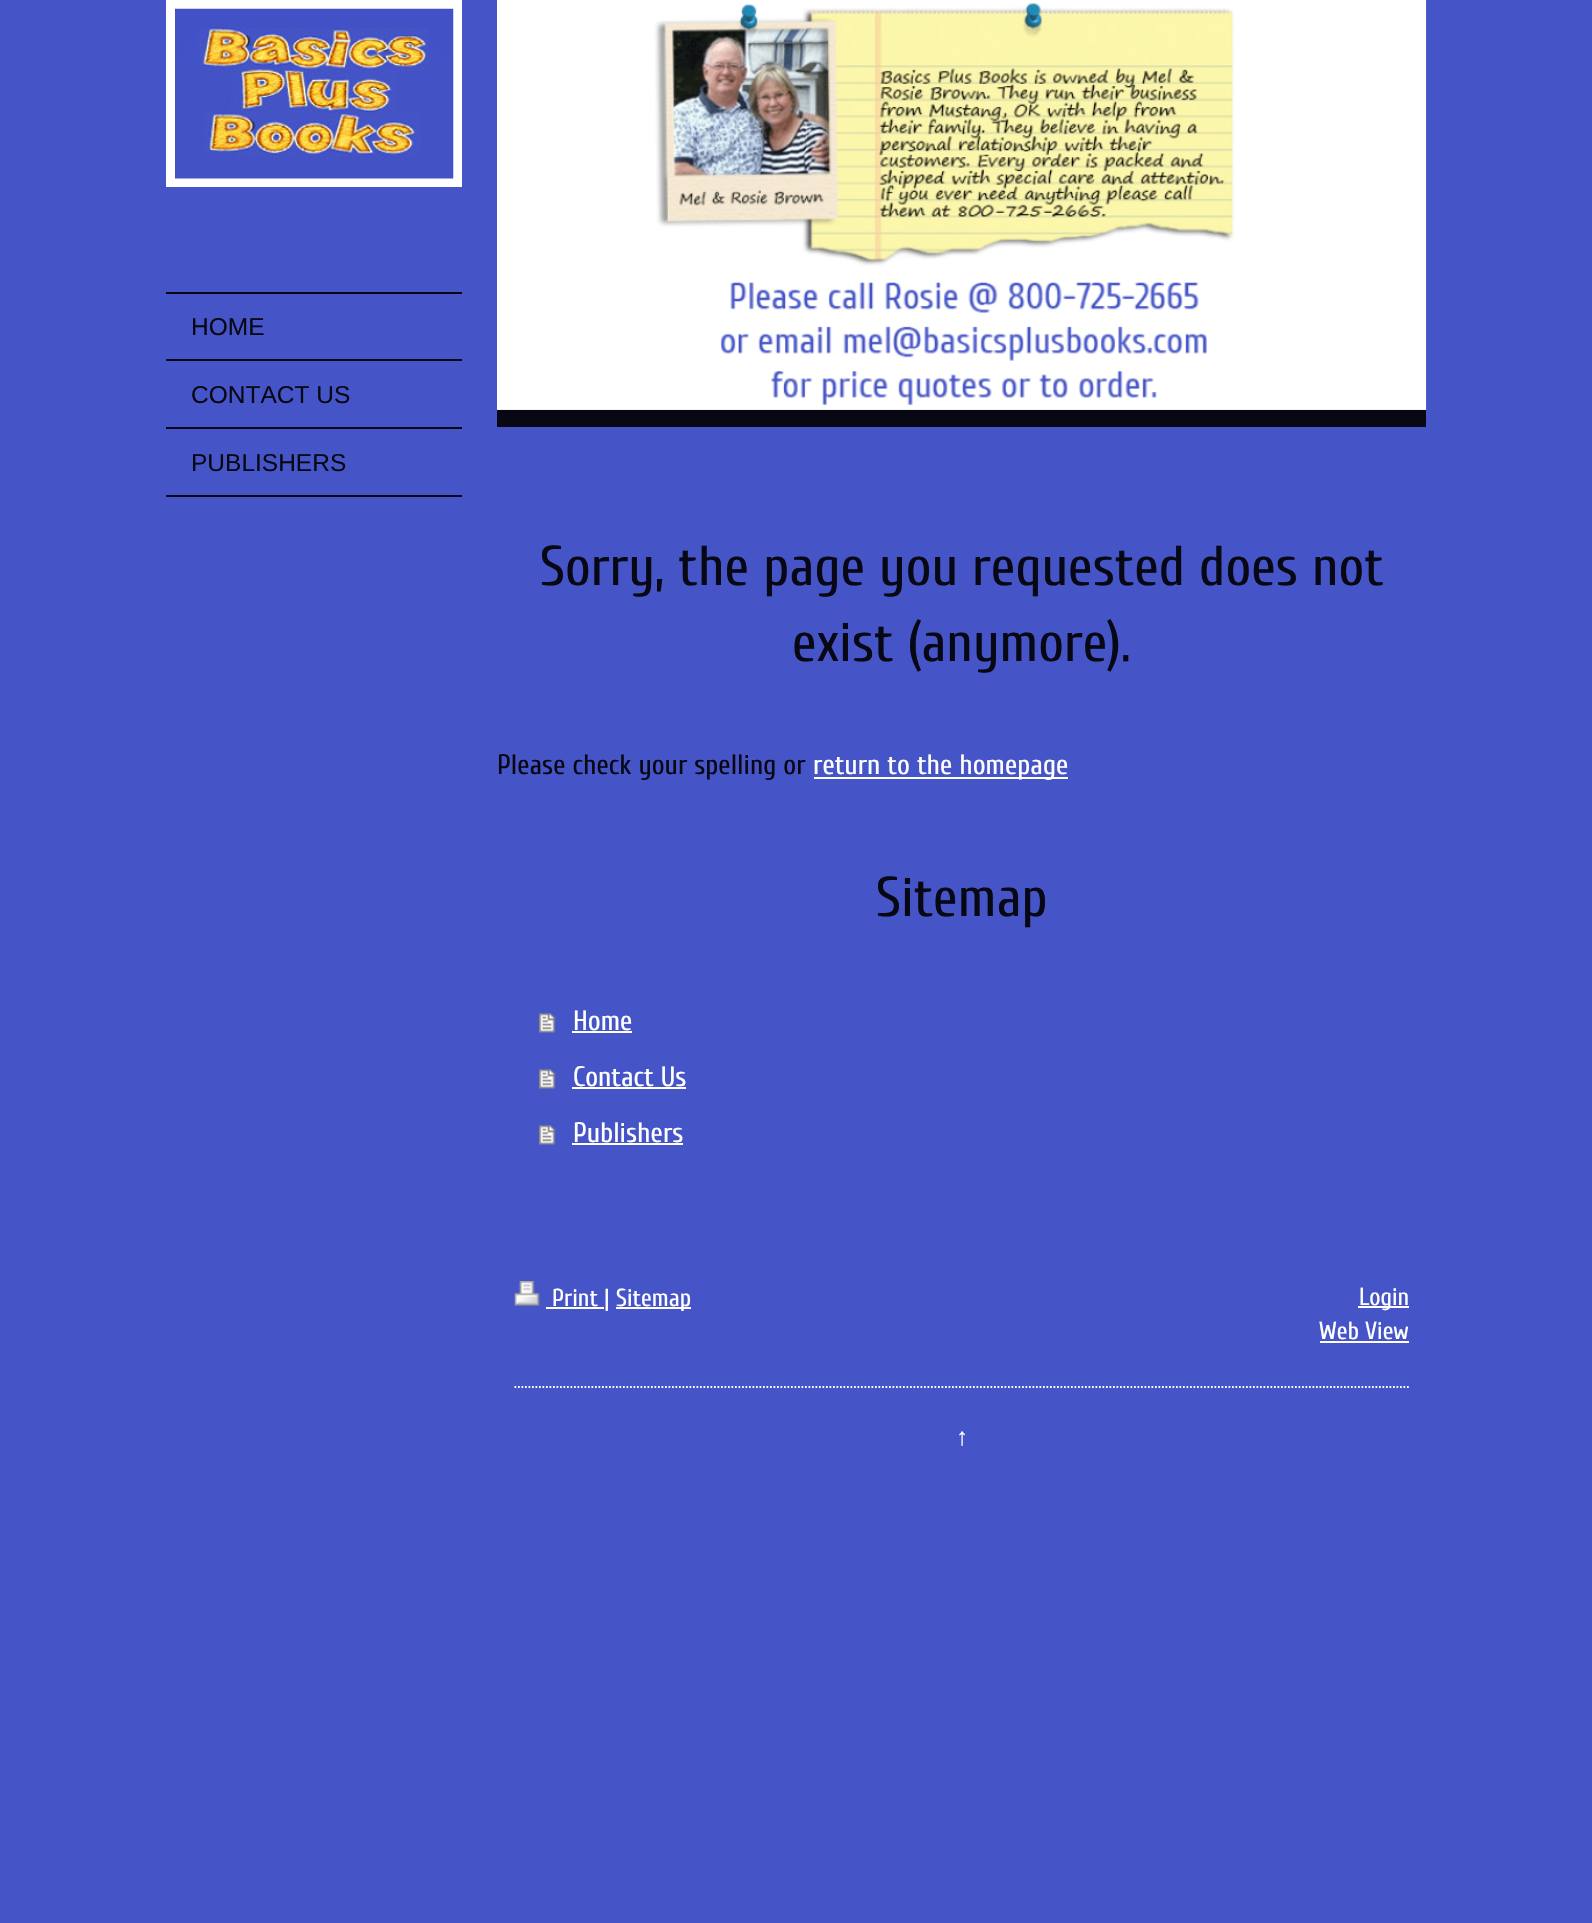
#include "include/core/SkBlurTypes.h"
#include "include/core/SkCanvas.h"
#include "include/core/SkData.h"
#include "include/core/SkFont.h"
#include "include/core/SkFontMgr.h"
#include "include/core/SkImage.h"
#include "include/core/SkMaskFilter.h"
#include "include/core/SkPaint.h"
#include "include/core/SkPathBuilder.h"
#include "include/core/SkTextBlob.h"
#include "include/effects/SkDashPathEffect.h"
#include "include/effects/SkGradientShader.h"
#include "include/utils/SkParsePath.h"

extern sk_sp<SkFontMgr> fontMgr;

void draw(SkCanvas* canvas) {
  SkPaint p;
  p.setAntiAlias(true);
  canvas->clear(SkColorSetRGB(69, 84, 199));
  p.setColor(SK_ColorWHITE);
  canvas->drawRect(SkRect::MakeLTRB(166, 0, 462, 187), p);
  canvas->drawImageRect(SkImages::DeferredFromEncodedData(SkData::MakeFromFileName("images/1.png")), SkRect::MakeLTRB(175, 8, 454, 179), SkSamplingOptions());
  p.setColor(SkColorSetRGB(7, 8, 20));
  canvas->drawRect(SkRect::MakeLTRB(166, 292, 462, 294), p);
  canvas->drawRect(SkRect::MakeLTRB(166, 359, 462, 361), p);
  canvas->drawRect(SkRect::MakeLTRB(166, 427, 462, 429), p);
  canvas->drawRect(SkRect::MakeLTRB(166, 495, 462, 497), p);
  canvas->drawRect(SkRect::MakeLTRB(497, 410, 1426, 427), p);
  p.setColor(SkColorSetRGB(238, 238, 238));
  canvas->drawRect(SkRect::MakeLTRB(497, 409, 1426, 410), p);
  canvas->drawImageRect(SkImages::DeferredFromEncodedData(SkData::MakeFromFileName("images/2.png")), SkRect::MakeLTRB(497, 0, 1427, 410), SkSamplingOptions());
  p.setColor(SK_ColorWHITE);
  canvas->drawRect(SkRect::MakeLTRB(814, 777, 1068, 779), p);
  canvas->drawImageRect(SkImages::DeferredFromEncodedData(SkData::MakeFromFileName("images/3.png")), SkRect::MakeLTRB(539, 1013, 556, 1033), SkSamplingOptions());
  canvas->drawRect(SkRect::MakeLTRB(572, 1031, 632, 1033), p);
  canvas->drawImageRect(SkImages::DeferredFromEncodedData(SkData::MakeFromFileName("images/3.png")), SkRect::MakeLTRB(539, 1069, 556, 1089), SkSamplingOptions());
  canvas->drawRect(SkRect::MakeLTRB(572, 1087, 686, 1089), p);
  canvas->drawImageRect(SkImages::DeferredFromEncodedData(SkData::MakeFromFileName("images/3.png")), SkRect::MakeLTRB(539, 1125, 556, 1145), SkSamplingOptions());
  canvas->drawRect(SkRect::MakeLTRB(572, 1143, 683, 1145), p);
  canvas->drawImageRect(SkImages::DeferredFromEncodedData(SkData::MakeFromFileName("images/4.png")), SkRect::MakeLTRB(514, 1281, 540, 1306), SkSamplingOptions());
  canvas->drawRect(SkRect::MakeLTRB(546, 1307, 604, 1309), p);
  canvas->drawRect(SkRect::MakeLTRB(616, 1307, 691, 1309), p);
  canvas->drawRect(SkRect::MakeLTRB(1358, 1306, 1409, 1308), p);
  canvas->drawRect(SkRect::MakeLTRB(1320, 1341, 1409, 1343), p);
  p.setStyle(SkPaint::kStroke_Style);
  p.setStrokeWidth(1.8f);
  p.setPathEffect(SkDashPathEffect::Make({{1.75f, 1.75f}}, 0));
  canvas->drawPath(SkPathBuilder().moveTo(514.5f, 1387).lineTo(1409, 1387).detach(), p);
  p.setPathEffect(nullptr);
  SkFont font1(fontMgr->matchFamilyStyle("Liberation Sans", SkFontStyle::Normal()), 24.5f);
  font1.setSubpixel(true);
  p.setStyle(SkPaint::kFill_Style);
  p.setColor(SkColorSetRGB(7, 8, 20));
  canvas->drawString("HOME", 191, 335, font1, p);
  canvas->drawString("CONTACT US", 191, 403, font1, p);
  canvas->drawString("PUBLISHERS", 191, 471, font1, p);
  SkFont font2(fontMgr->matchFamilyStyle("Cuprum", SkFontStyle::Normal()), 56);
  font2.setSubpixel(true);
  canvas->drawString("Sorry, the page you requested does not", 540, 585, font2, p);
  canvas->drawString("exist (anymore).", 792, 661, font2, p);
  SkFont font3(fontMgr->matchFamilyStyle("Cuprum", SkFontStyle::Normal()), 28);
  font3.setSubpixel(true);
  canvas->drawString("Please check your spelling or", 497, 774, font3, p);
  p.setColor(SK_ColorWHITE);
  canvas->drawString("return to the homepage", 813, 774, font3, p);
  p.setColor(SkColorSetRGB(7, 8, 20));
  canvas->drawString("Sitemap", 876, 916, font2, p);
  p.setColor(SK_ColorWHITE);
  canvas->drawString("Home", 573, 1030, font3, p);
  canvas->drawString("Contact Us", 573, 1086, font3, p);
  canvas->drawString("Publishers", 573, 1142, font3, p);
  SkFont font4(fontMgr->matchFamilyStyle("Cuprum", SkFontStyle::Normal()), 24.5f);
  font4.setSubpixel(true);
  canvas->drawString("Print |", 552, 1306, font4, p);
  canvas->drawString("Sitemap", 616, 1306, font4, p);
  canvas->drawString("Login", 1359, 1305, font4, p);
  canvas->drawString("Web View", 1319, 1339, font4, p);
  canvas->drawString("↑", 956, 1445, font1, p);
}
